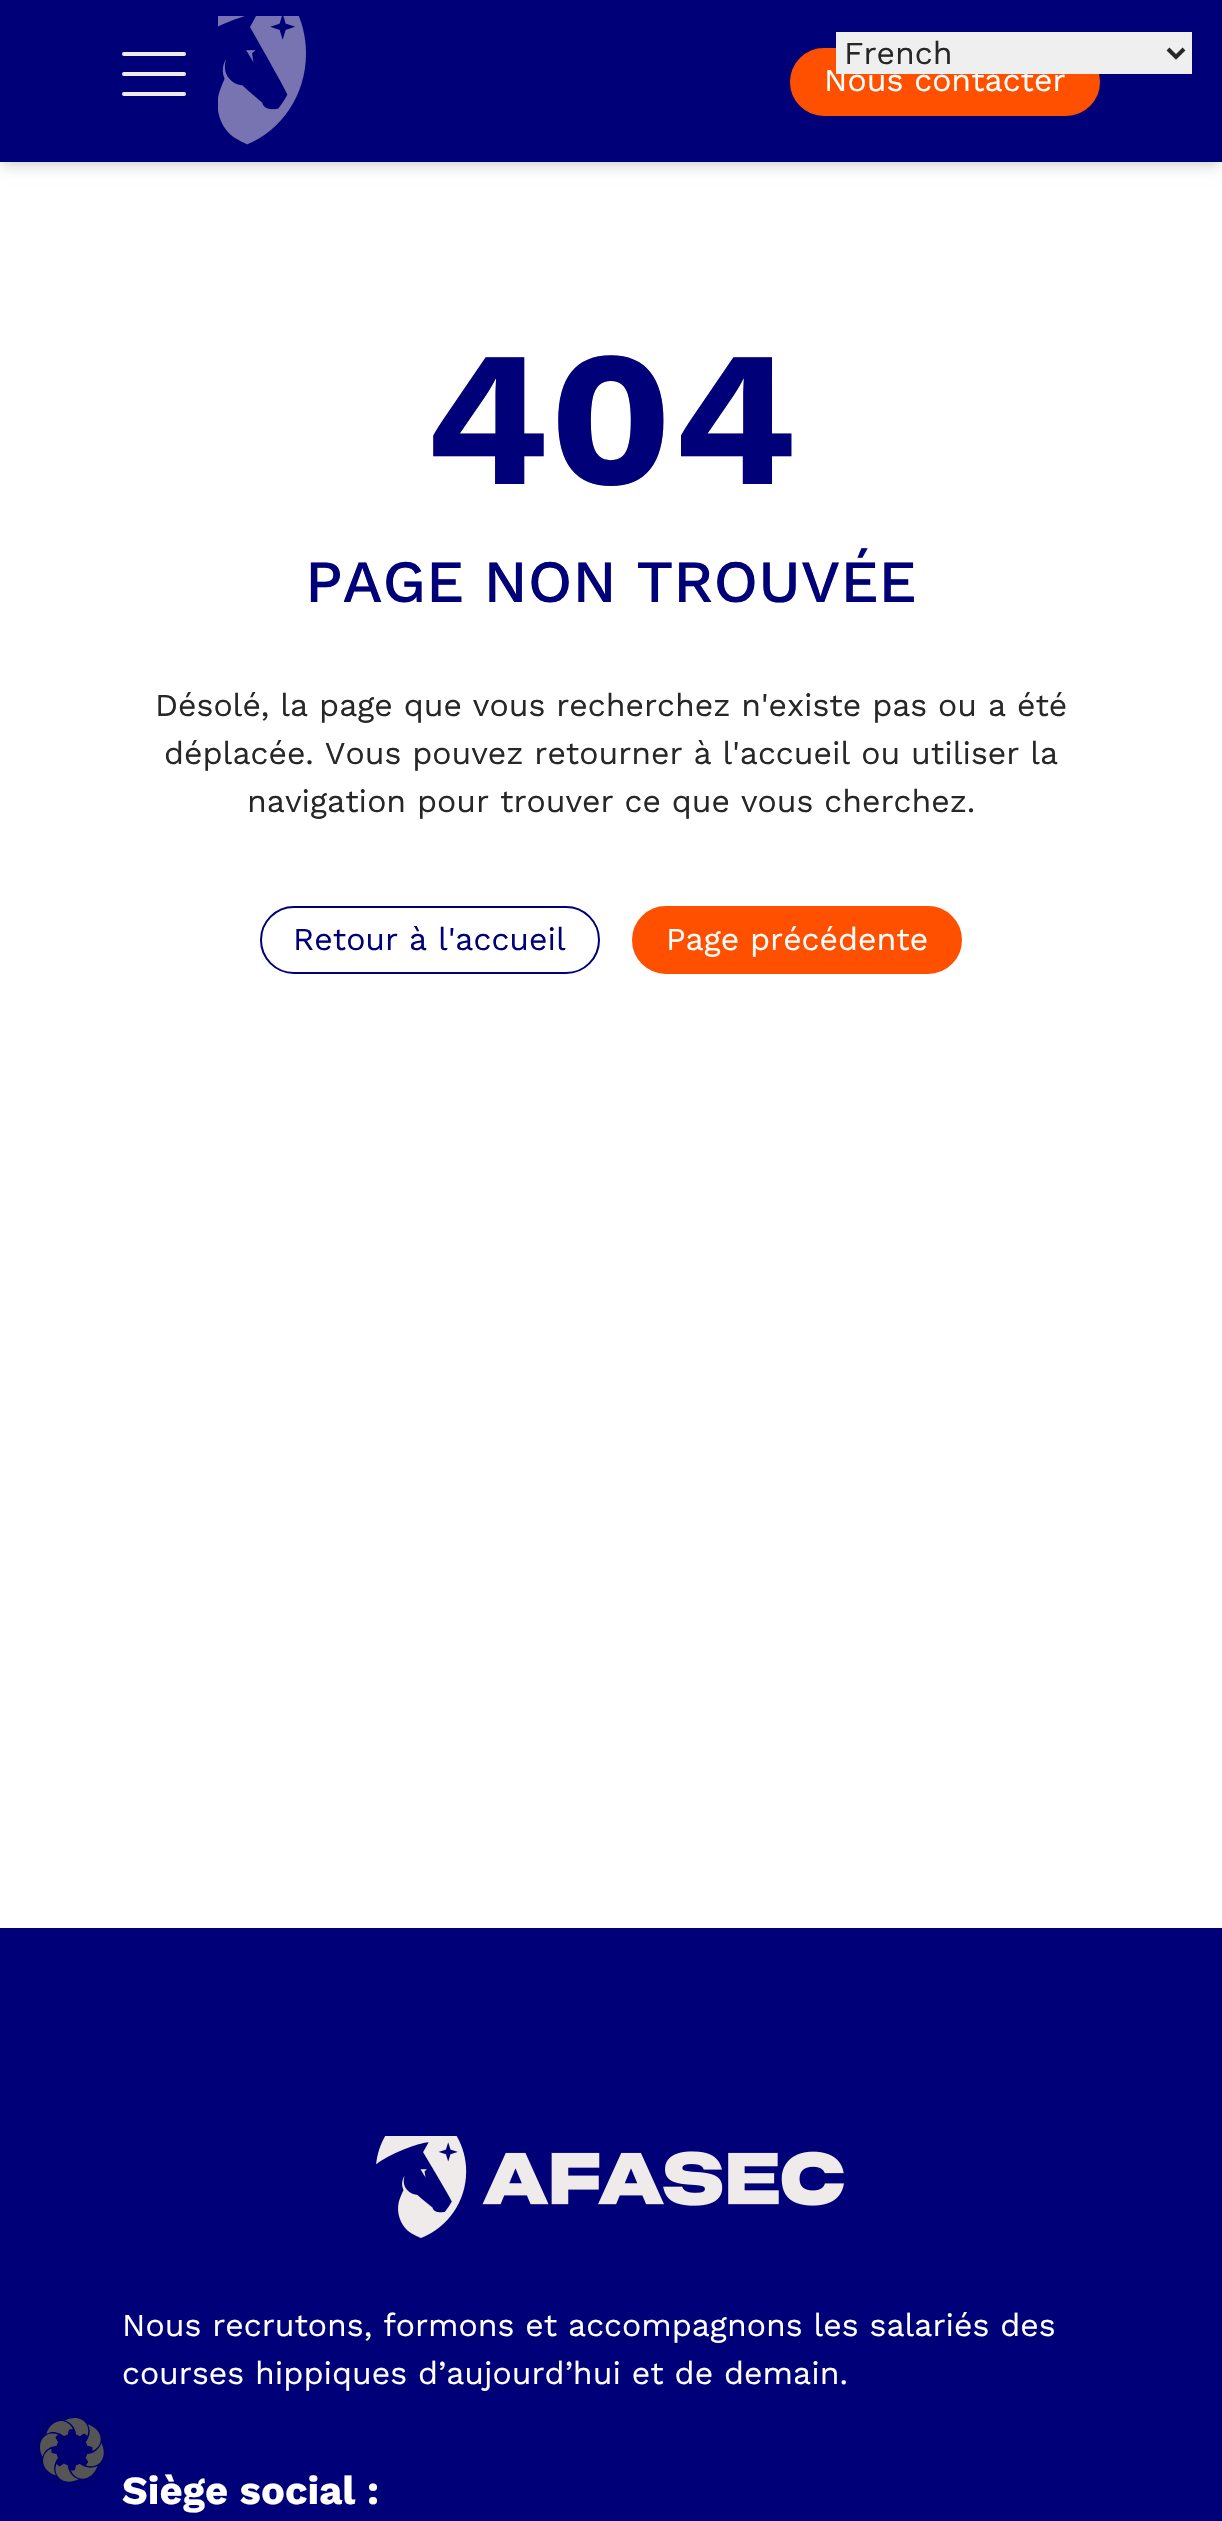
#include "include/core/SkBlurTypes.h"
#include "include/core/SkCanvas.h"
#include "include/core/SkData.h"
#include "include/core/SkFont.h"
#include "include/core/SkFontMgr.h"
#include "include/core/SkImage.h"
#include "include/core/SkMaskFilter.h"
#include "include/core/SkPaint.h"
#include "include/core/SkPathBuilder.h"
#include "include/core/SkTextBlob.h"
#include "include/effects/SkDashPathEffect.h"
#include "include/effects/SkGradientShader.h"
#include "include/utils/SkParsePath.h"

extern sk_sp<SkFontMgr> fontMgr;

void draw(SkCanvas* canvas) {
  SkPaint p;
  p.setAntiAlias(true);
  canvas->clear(SK_ColorWHITE);
  p.setColor(SkColorSetARGB(26, 0, 0, 0));
  p.setMaskFilter(SkMaskFilter::MakeBlur(kNormal_SkBlurStyle, 4));
  canvas->drawRect(SkRect::MakeLTRB(4, 8, 1218, 162), p);
  p.setMaskFilter(nullptr);
  p.setMaskFilter(SkMaskFilter::MakeBlur(kNormal_SkBlurStyle, 6));
  canvas->drawRect(SkRect::MakeLTRB(2, 10, 1220, 168), p);
  p.setMaskFilter(nullptr);
  p.setColor(SkColorSetRGB(0, 0, 120));
  canvas->drawRect(SkRect::MakeLTRB(0, 0, 1222, 162), p);
  p.setColor(SkColorSetRGB(240, 235, 235));
  canvas->drawRoundRect(SkRect::MakeLTRB(122, 52, 186, 56), 2, 2, p);
  canvas->drawRoundRect(SkRect::MakeLTRB(122, 72, 186, 76), 2, 2, p);
  canvas->drawRoundRect(SkRect::MakeLTRB(122, 92, 186, 96), 2, 2, p);
  canvas->drawImageRect(SkImages::DeferredFromEncodedData(SkData::MakeFromFileName("images/1.png")), SkRect::MakeLTRB(218, 16, 306, 145), SkSamplingOptions());
  p.setColor(SkColorSetRGB(255, 80, 0));
  canvas->drawRoundRect(SkRect::MakeLTRB(791, 49, 1099, 115), 33, 33, p);
  p.setStyle(SkPaint::kStroke_Style);
  p.setStrokeWidth(2);
  canvas->drawRoundRect(SkRect::MakeLTRB(791, 49, 1099, 115), 33, 33, p);
  p.setColor(SkColorSetRGB(0, 0, 120));
  canvas->drawRoundRect(SkRect::MakeLTRB(261, 907, 599, 973), 33, 33, p);
  p.setStyle(SkPaint::kFill_Style);
  p.setColor(SkColorSetRGB(255, 80, 0));
  canvas->drawRoundRect(SkRect::MakeLTRB(633, 907, 961, 973), 33, 33, p);
  p.setStyle(SkPaint::kStroke_Style);
  canvas->drawRoundRect(SkRect::MakeLTRB(633, 907, 961, 973), 33, 33, p);
  p.setStyle(SkPaint::kFill_Style);
  p.setColor(SkColorSetRGB(0, 0, 120));
  canvas->drawRect(SkRect::MakeLTRB(0, 1928, 1222, 2521), p);
  canvas->drawImageRect(SkImages::DeferredFromEncodedData(SkData::MakeFromFileName("images/2.png")), SkRect::MakeLTRB(34, 2412, 109, 2487), SkSamplingOptions());
  canvas->drawImageRect(SkImages::DeferredFromEncodedData(SkData::MakeFromFileName("images/3.png")), SkRect::MakeLTRB(376, 2136, 844, 2238), SkSamplingOptions());
  SkFont font1(fontMgr->matchFamilyStyle("Work Sans", SkFontStyle::Normal()), 32);
  font1.setSubpixel(true);
  p.setColor(SK_ColorWHITE);
  canvas->drawString("Nous contacter", 824, 91, font1, p);
  p.setColor(SkColorSetRGB(239, 239, 239));
  canvas->drawRect(SkRect::MakeLTRB(836, 32, 1192, 74), p);
  p.setColor(SkColorSetRGB(39, 39, 39));
  canvas->drawString("French", 844, 64, font1, p);
  p.setStyle(SkPaint::kStroke_Style);
  p.setStrokeWidth(4);
  canvas->drawPath(SkPathBuilder().moveTo(1168, 49).lineTo(1176, 57).lineTo(1184, 49).detach(), p);
  SkFont font2(fontMgr->matchFamilyStyle("Work Sans", SkFontStyle::Bold()), 192);
  font2.setSubpixel(true);
  p.setStyle(SkPaint::kFill_Style);
  p.setColor(SkColorSetRGB(0, 0, 120));
  canvas->drawString("404", 425, 484, font2, p);
  SkFont font3(fontMgr->matchFamilyStyle("Work Sans", SkFontStyle(500, SkFontStyle::kNormal_Width, SkFontStyle::kUpright_Slant)), 60);
  font3.setSubpixel(true);
  canvas->drawString("PAGE NON TROUVÉE", 305, 602, font3, p);
  p.setColor(SkColorSetRGB(39, 39, 39));
  canvas->drawString("Désolé, la page que vous recherchez n'existe pas ou a été", 155, 716, font1, p);
  canvas->drawString("déplacée. Vous pouvez retourner à l'accueil ou utiliser la", 164, 764, font1, p);
  canvas->drawString("navigation pour trouver ce que vous cherchez.", 247, 812, font1, p);
  p.setColor(SkColorSetRGB(0, 0, 120));
  canvas->drawString("Retour à l'accueil", 293, 950, font1, p);
  p.setColor(SK_ColorWHITE);
  canvas->drawString("Page précédente", 666, 950, font1, p);
  canvas->drawString("Nous recrutons, formons et accompagnons les salariés des", 122, 2336, font1, p);
  canvas->drawString("courses hippiques d’aujourd’hui et de demain.", 122, 2384, font1, p);
  SkFont font4(fontMgr->matchFamilyStyle("Work Sans", SkFontStyle::Bold()), 40);
  font4.setSubpixel(true);
  canvas->drawString("Siège social :", 122, 2504, font4, p);
}
